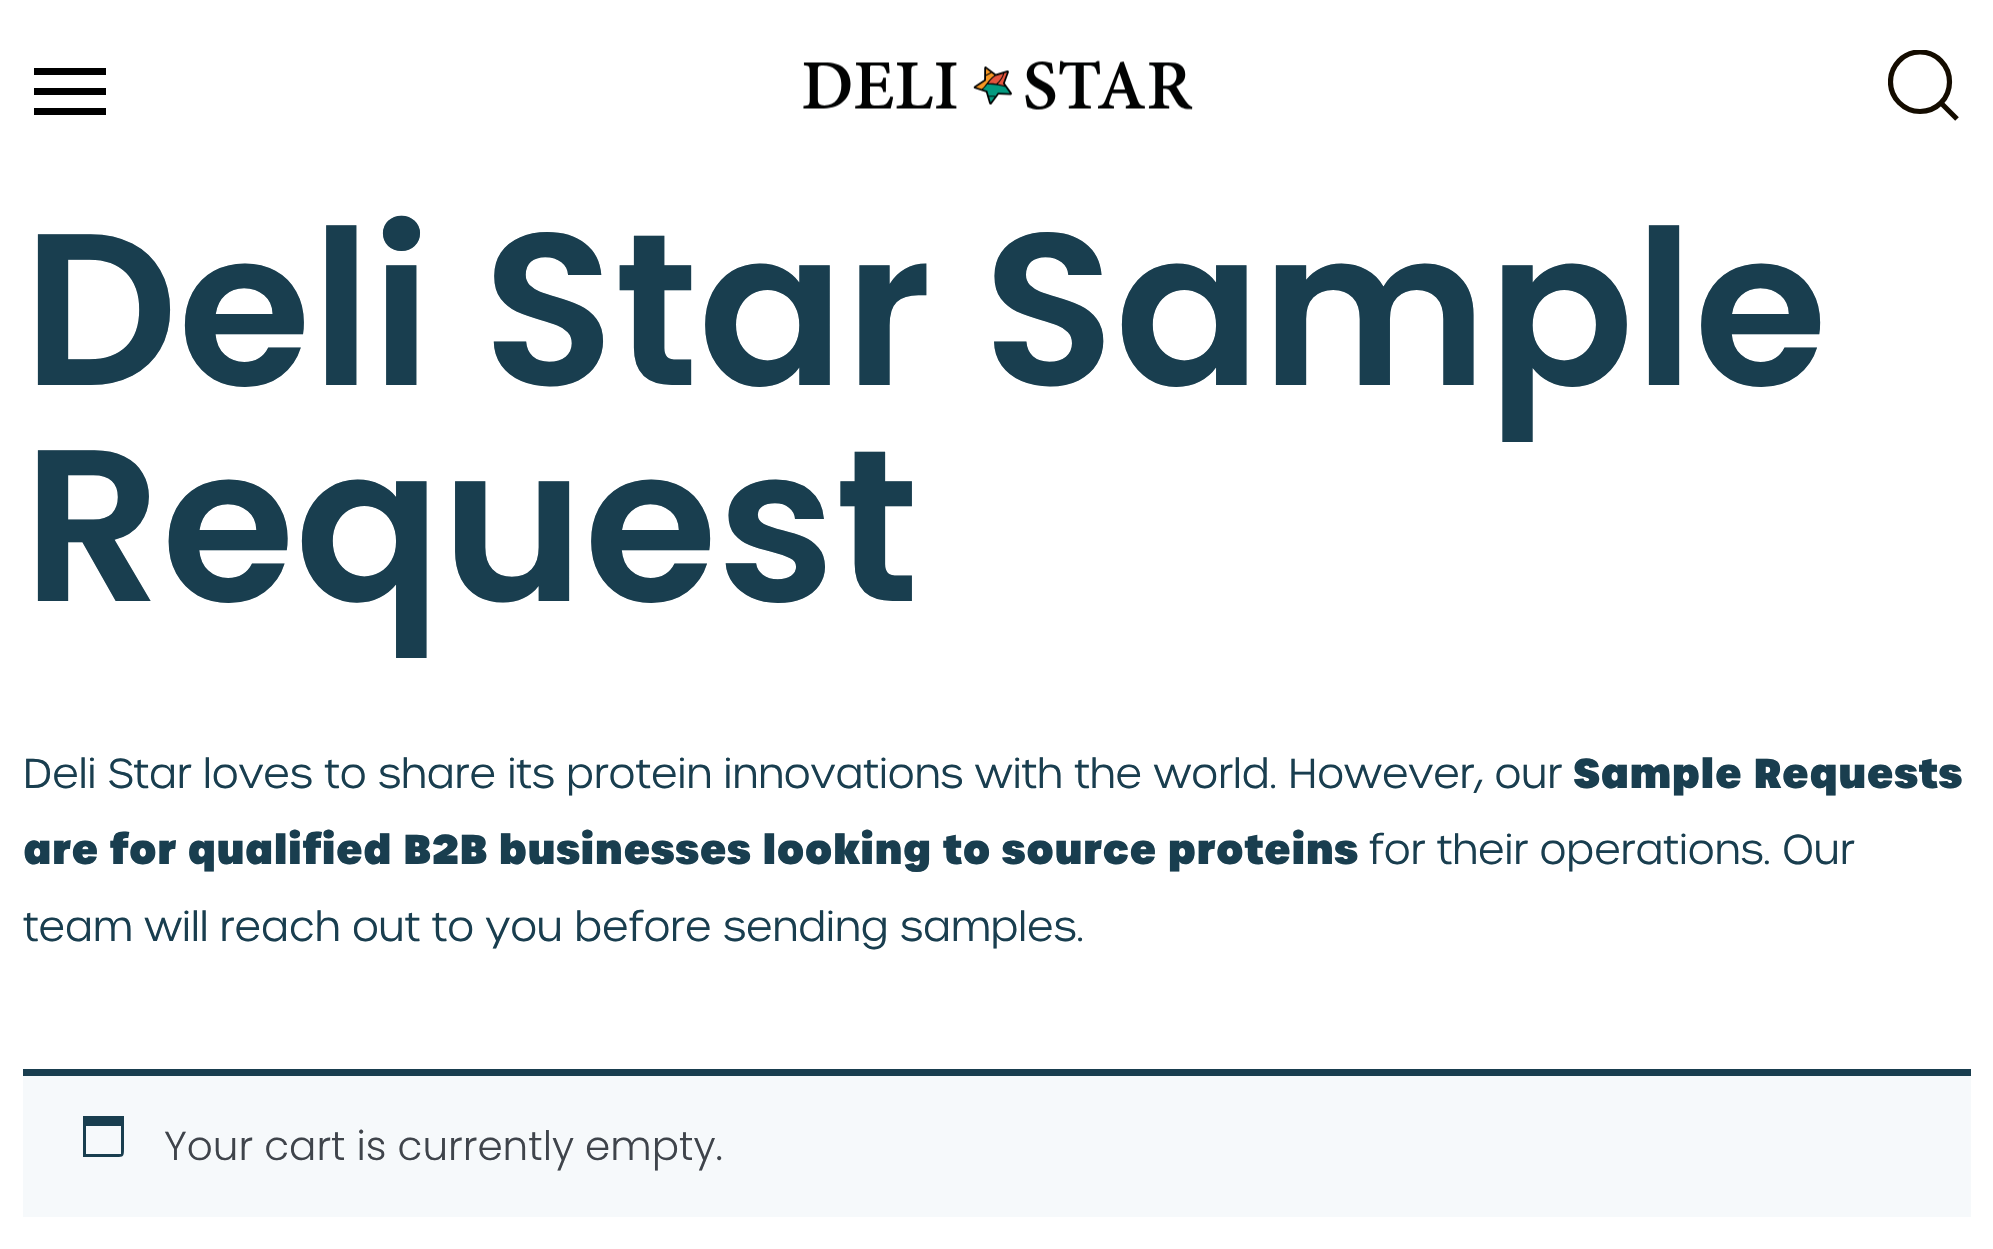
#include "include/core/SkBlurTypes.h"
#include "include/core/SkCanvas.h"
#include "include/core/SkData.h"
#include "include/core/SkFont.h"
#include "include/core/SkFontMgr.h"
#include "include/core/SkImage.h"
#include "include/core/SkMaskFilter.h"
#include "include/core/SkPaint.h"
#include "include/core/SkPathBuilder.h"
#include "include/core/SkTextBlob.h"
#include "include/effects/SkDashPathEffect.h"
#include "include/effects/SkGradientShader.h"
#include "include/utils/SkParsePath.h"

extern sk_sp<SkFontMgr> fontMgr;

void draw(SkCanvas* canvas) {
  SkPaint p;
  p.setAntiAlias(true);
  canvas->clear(SK_ColorWHITE);
  p.setColor(SK_ColorBLACK);
  canvas->drawRect(SkRect::MakeLTRB(34, 88, 106, 95), p);
  canvas->drawRect(SkRect::MakeLTRB(34, 68, 106, 75), p);
  canvas->drawRect(SkRect::MakeLTRB(34, 108, 106, 115), p);
  canvas->drawImageRect(SkImages::DeferredFromEncodedData(SkData::MakeFromFileName("images/1.png")), SkRect::MakeLTRB(803, 60, 1193, 110), SkSamplingOptions());
  canvas->save();
  canvas->clipRect(SkRect::MakeLTRB(1888, 50, 1960, 122));
  p.setStyle(SkPaint::kStroke_Style);
  p.setStrokeWidth(5.2f);
  p.setColor(SkColorSetRGB(20, 12, 0));
  canvas->drawPath(SkPathBuilder().moveTo(1949.5f, 82).cubicTo(1949.5f, 98.5f, 1936.5f, 111.5f, 1920, 111.5f).cubicTo(1904, 111.5f, 1890.5f, 98, 1890.5f, 82).cubicTo(1890.5f, 65.5f, 1903.5f, 52, 1920, 52).cubicTo(1936.5f, 52, 1949.5f, 65.5f, 1949.5f, 82).close().detach(), p);
  canvas->restore();
  canvas->drawPath(SkPathBuilder().moveTo(1957, 119).lineTo(1941, 103).detach(), p);
  p.setStyle(SkPaint::kFill_Style);
  p.setColor(SkColorSetRGB(246, 249, 251));
  canvas->drawRect(SkRect::MakeLTRB(23, 1076, 1971, 1217), p);
  p.setColor(SkColorSetRGB(25, 62, 79));
  canvas->drawRect(SkRect::MakeLTRB(23, 1069, 1971, 1076), p);
  canvas->drawPath(SkPathBuilder().moveTo(121, 1126).lineTo(86, 1126).lineTo(86, 1154).lineTo(121, 1154).close().moveTo(124, 1116).lineTo(124, 1147).cubicTo(124, 1157, 124, 1157, 115, 1157).lineTo(83, 1157).lineTo(83, 1116).close().detach(), p);
  SkFont font1(fontMgr->matchFamilyStyle("Poppins", SkFontStyle(600, SkFontStyle::kNormal_Width, SkFontStyle::kUpright_Slant)), 216);
  font1.setSubpixel(true);
  canvas->drawString("Deli Star Sample", 23, 385, font1, p);
  canvas->drawString("Request", 23, 601, font1, p);
  SkFont font2(fontMgr->matchFamilyStyle("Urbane", SkFontStyle(300, SkFontStyle::kNormal_Width, SkFontStyle::kUpright_Slant)), 40.5f);
  font2.setSubpixel(true);
  canvas->drawString("Deli Star loves to share its protein innovations with the world. However, our", 23, 788, font2, p);
  SkFont font3(fontMgr->matchFamilyStyle("Urbane", SkFontStyle(900, SkFontStyle::kNormal_Width, SkFontStyle::kUpright_Slant)), 40.5f);
  font3.setSubpixel(true);
  canvas->drawString("Sample Requests", 1573, 788, font3, p);
  canvas->drawString("are for qualified B2B businesses looking to source proteins", 23, 864, font3, p);
  canvas->drawString("for their operations. Our", 1369, 864, font2, p);
  canvas->drawString("team will reach out to you before sending samples.", 23, 941, font2, p);
  SkFont font4(fontMgr->matchFamilyStyle("Poppins", SkFontStyle(300, SkFontStyle::kNormal_Width, SkFontStyle::kUpright_Slant)), 40.5f);
  font4.setSubpixel(true);
  p.setColor(SkColorSetRGB(63, 68, 75));
  canvas->drawString("Your cart is currently empty.", 164, 1160, font4, p);
}
